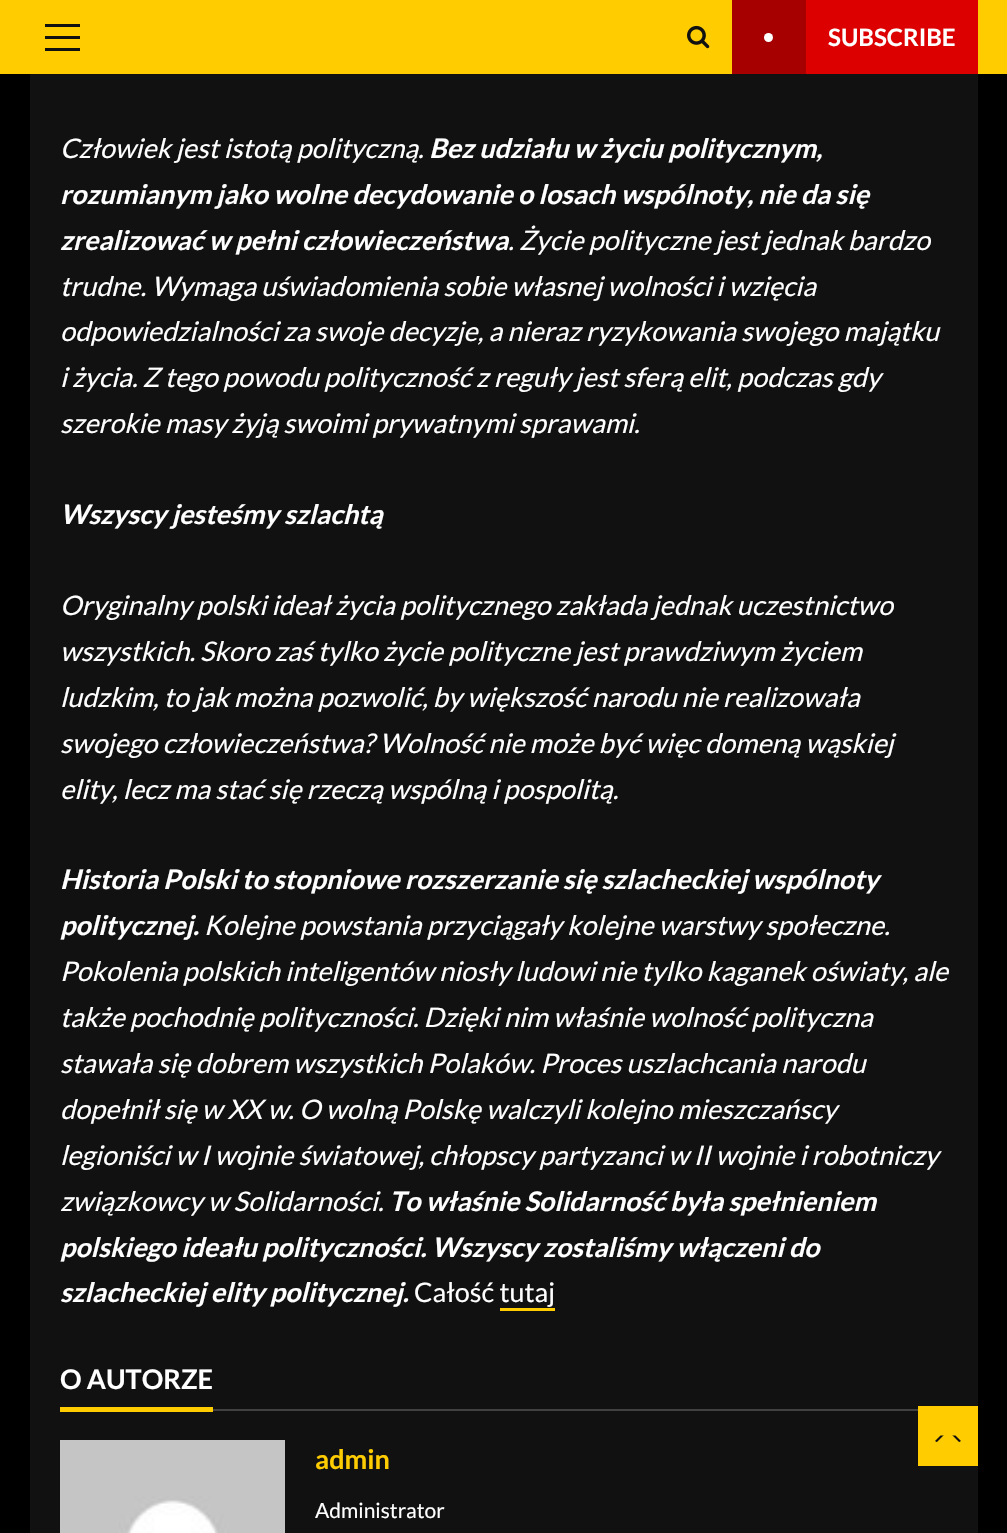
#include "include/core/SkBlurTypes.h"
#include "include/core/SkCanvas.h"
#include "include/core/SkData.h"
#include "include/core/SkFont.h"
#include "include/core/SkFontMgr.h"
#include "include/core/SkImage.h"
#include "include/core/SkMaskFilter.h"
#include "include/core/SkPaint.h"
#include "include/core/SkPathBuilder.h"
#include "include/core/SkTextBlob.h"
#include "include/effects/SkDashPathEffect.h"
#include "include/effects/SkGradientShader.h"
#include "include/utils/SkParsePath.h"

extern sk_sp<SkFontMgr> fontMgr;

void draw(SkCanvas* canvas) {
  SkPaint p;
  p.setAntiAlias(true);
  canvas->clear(SK_ColorBLACK);
  p.setColor(SkColorSetRGB(255, 204, 0));
  canvas->drawRect(SkRect::MakeLTRB(0, 0, 1007, 74), p);
  p.setColor(SkColorSetRGB(17, 17, 17));
  canvas->drawRect(SkRect::MakeLTRB(45, 36, 80, 39), p);
  canvas->drawRect(SkRect::MakeLTRB(45, 24, 80, 27), p);
  canvas->drawRect(SkRect::MakeLTRB(45, 48, 80, 51), p);
  canvas->drawImageRect(SkImages::DeferredFromEncodedData(SkData::MakeFromFileName("images/1.png")), SkRect::MakeLTRB(687, 25, 710, 49), SkSamplingOptions());
  p.setColor(SkColorSetRGB(221, 0, 0));
  canvas->drawRect(SkRect::MakeLTRB(806, 0, 978, 74), p);
  p.setColor(SkColorSetRGB(166, 0, 0));
  canvas->drawRect(SkRect::MakeLTRB(732, 0, 806, 74), p);
  p.setColor(SK_ColorWHITE);
  canvas->drawCircle(768.5f, 37.5f, 4.5f, p);
  p.setColor(SkColorSetRGB(17, 17, 17));
  canvas->drawRect(SkRect::MakeLTRB(30, 74, 978, 1533), p);
  p.setColor(SkColorSetRGB(255, 204, 0));
  canvas->drawRect(SkRect::MakeLTRB(500, 1308, 555, 1311), p);
  p.setColor(SkColorSetRGB(65, 65, 65));
  canvas->drawRect(SkRect::MakeLTRB(213, 1409, 918, 1411), p);
  p.setColor(SkColorSetRGB(255, 204, 0));
  canvas->drawRect(SkRect::MakeLTRB(60, 1407, 213, 1412), p);
  canvas->drawImageRect(SkImages::DeferredFromEncodedData(SkData::MakeFromFileName("images/2.png")), SkRect::MakeLTRB(60, 1440, 285, 1533), SkSamplingOptions());
  canvas->drawRect(SkRect::MakeLTRB(918, 1406, 978, 1466), p);
  p.setColor(SkColorSetRGB(17, 17, 17));
  canvas->drawPath(SkPathBuilder().moveTo(940.5f, 1443).lineTo(955.5f, 1443).cubicTo(957.5f, 1443, 959.5f, 1442, 961, 1441).lineTo(955.5f, 1435.5f).lineTo(940.5f, 1435.5f).lineTo(935, 1441).cubicTo(936.5f, 1442, 938.5f, 1443, 940.5f, 1443).close().detach(), p);
  p.setColor(SkColorSetRGB(255, 204, 0));
  canvas->drawPath(SkPathBuilder().moveTo(963, 1446).lineTo(933, 1446).lineTo(948, 1431).close().detach(), p);
  SkFont font1(fontMgr->matchFamilyStyle("Lato", SkFontStyle::Bold()), 24);
  font1.setSubpixel(true);
  p.setColor(SK_ColorWHITE);
  canvas->drawString("SUBSCRIBE", 828, 46, font1, p);
  SkFont font2(fontMgr->matchFamilyStyle("Lato", SkFontStyle::Italic()), 27);
  font2.setSubpixel(true);
  canvas->drawString("Człowiek jest istotą polityczną.", 60, 158, font2, p);
  SkFont font3(fontMgr->matchFamilyStyle("Lato", SkFontStyle::BoldItalic()), 27);
  font3.setSubpixel(true);
  canvas->drawString("Bez udziału w życiu politycznym,", 429, 158, font3, p);
  canvas->drawString("rozumianym jako wolne decydowanie o losach wspólnoty, nie da się", 60, 204, font3, p);
  canvas->drawString("zrealizować w pełni człowieczeństwa", 60, 250, font3, p);
  canvas->drawString(". Życie polityczne jest jednak bardzo", 508, 250, font2, p);
  canvas->drawString("trudne. Wymaga uświadomienia sobie własnej wolności i wzięcia", 60, 296, font2, p);
  canvas->drawString("odpowiedzialności za swoje decyzje, a nieraz ryzykowania swojego majątku", 60, 341, font2, p);
  canvas->drawString("i życia. Z tego powodu polityczność z reguły jest sferą elit, podczas gdy", 60, 387, font2, p);
  canvas->drawString("szerokie masy żyją swoimi prywatnymi sprawami.", 60, 433, font2, p);
  canvas->drawString("Wszyscy jesteśmy szlachtą", 60, 524, font3, p);
  canvas->drawString("Oryginalny polski ideał życia politycznego zakłada jednak uczestnictwo", 60, 615, font2, p);
  canvas->drawString("wszystkich. Skoro zaś tylko życie polityczne jest prawdziwym życiem", 60, 661, font2, p);
  canvas->drawString("ludzkim, to jak można pozwolić, by większość narodu nie realizowała", 60, 707, font2, p);
  canvas->drawString("swojego człowieczeństwa? Wolność nie może być więc domeną wąskiej", 60, 753, font2, p);
  canvas->drawString("elity, lecz ma stać się rzeczą wspólną i pospolitą.", 60, 799, font2, p);
  canvas->drawString("Historia Polski to stopniowe rozszerzanie się szlacheckiej wspólnoty", 60, 889, font3, p);
  canvas->drawString("politycznej.", 60, 935, font3, p);
  canvas->drawString("Kolejne powstania przyciągały kolejne warstwy społeczne.", 204, 935, font2, p);
  canvas->drawString("Pokolenia polskich inteligentów niosły ludowi nie tylko kaganek oświaty, ale", 60, 981, font2, p);
  canvas->drawString("także pochodnię polityczności. Dzięki nim właśnie wolność polityczna", 60, 1027, font2, p);
  canvas->drawString("stawała się dobrem wszystkich Polaków. Proces uszlachcania narodu", 60, 1073, font2, p);
  canvas->drawString("dopełnił się w XX w. O wolną Polskę walczyli kolejno mieszczańscy", 60, 1119, font2, p);
  canvas->drawString("legioniści w I wojnie światowej, chłopscy partyzanci w II wojnie i robotniczy", 60, 1165, font2, p);
  canvas->drawString("związkowcy w Solidarności.", 60, 1211, font2, p);
  canvas->drawString("To właśnie Solidarność była spełnieniem", 389, 1211, font3, p);
  canvas->drawString("polskiego ideału polityczności. Wszyscy zostaliśmy włączeni do", 60, 1257, font3, p);
  canvas->drawString("szlacheckiej elity politycznej.", 60, 1302, font3, p);
  SkFont font4(fontMgr->matchFamilyStyle("Lato", SkFontStyle::Normal()), 27);
  font4.setSubpixel(true);
  canvas->drawString("Całość tutaj", 414, 1302, font4, p);
  SkFont font5(fontMgr->matchFamilyStyle("Lato", SkFontStyle::Bold()), 27);
  font5.setSubpixel(true);
  canvas->drawString("O AUTORZE", 60, 1389, font5, p);
  p.setColor(SkColorSetRGB(255, 204, 0));
  canvas->drawString("admin", 315, 1469, font5, p);
  SkFont font6(fontMgr->matchFamilyStyle("Lato", SkFontStyle::Normal()), 21);
  font6.setSubpixel(true);
  p.setColor(SK_ColorWHITE);
  canvas->drawString("Administrator", 315, 1518, font6, p);
}
